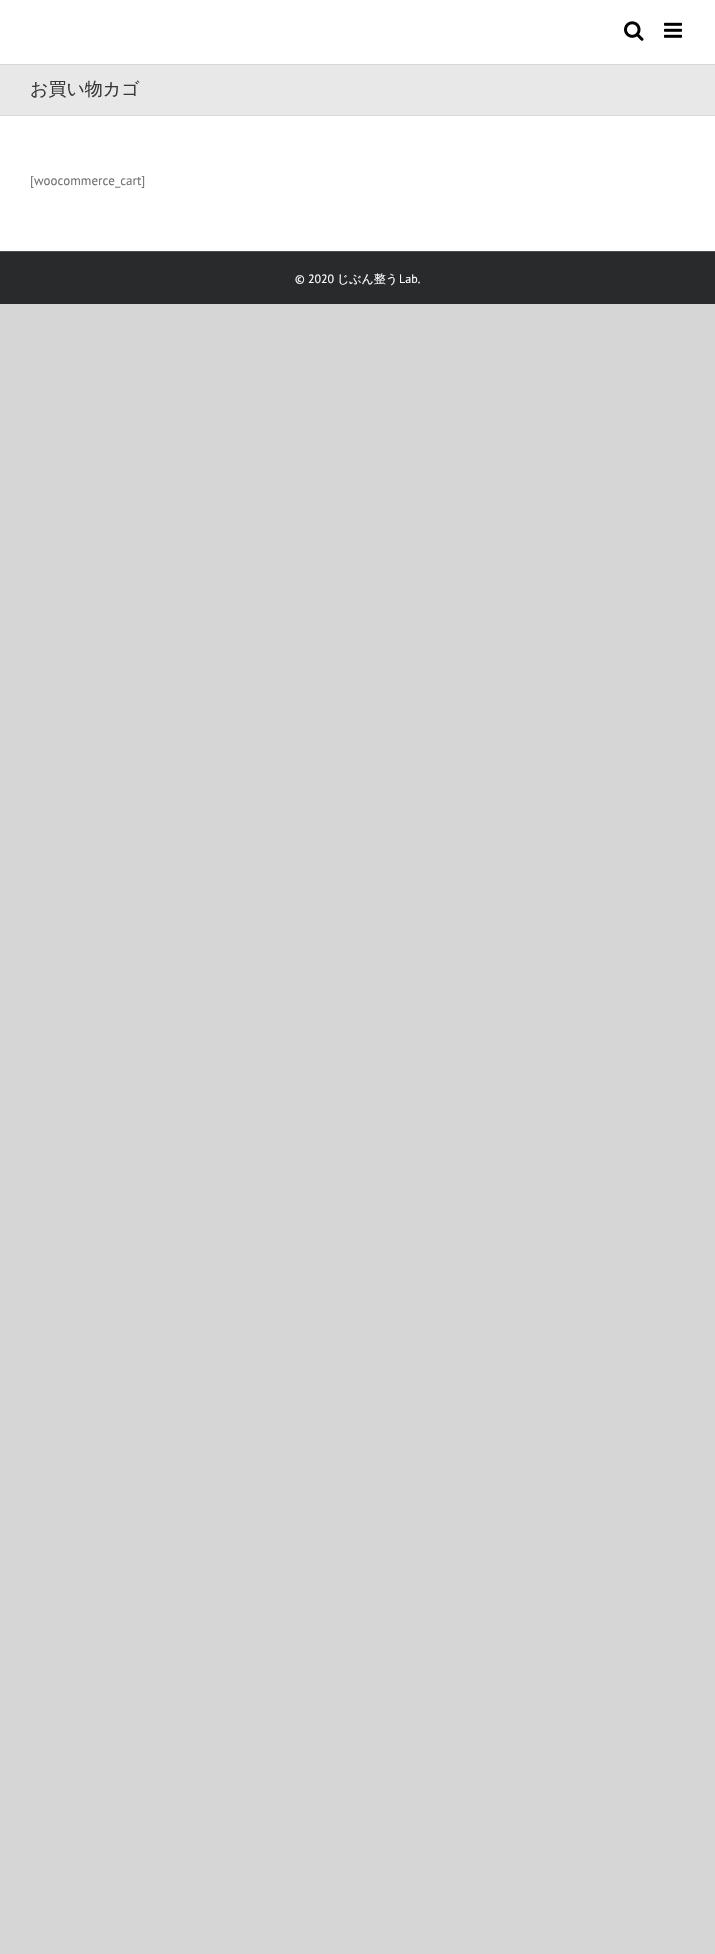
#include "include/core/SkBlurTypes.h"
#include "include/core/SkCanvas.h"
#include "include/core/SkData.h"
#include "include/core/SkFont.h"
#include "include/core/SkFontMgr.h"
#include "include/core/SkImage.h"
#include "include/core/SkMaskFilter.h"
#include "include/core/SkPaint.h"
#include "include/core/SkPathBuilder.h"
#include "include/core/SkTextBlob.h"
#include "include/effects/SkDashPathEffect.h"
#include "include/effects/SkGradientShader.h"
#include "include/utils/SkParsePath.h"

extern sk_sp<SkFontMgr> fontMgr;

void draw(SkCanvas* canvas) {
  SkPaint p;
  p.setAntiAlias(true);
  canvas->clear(SkColorSetRGB(215, 214, 214));
  p.setColor(SK_ColorWHITE);
  canvas->drawRect(SkRect::MakeLTRB(0, 0, 715, 251), p);
  canvas->drawImageRect(SkImages::DeferredFromEncodedData(SkData::MakeFromFileName("images/1.png")), SkRect::MakeLTRB(624, 21, 644, 41), SkSamplingOptions());
  canvas->drawImageRect(SkImages::DeferredFromEncodedData(SkData::MakeFromFileName("images/2.png")), SkRect::MakeLTRB(664, 22, 682, 38), SkSamplingOptions());
  p.setColor(SkColorSetRGB(232, 232, 232));
  canvas->drawRect(SkRect::MakeLTRB(0, 65, 715, 115), p);
  p.setColor(SkColorSetRGB(216, 216, 216));
  canvas->drawRect(SkRect::MakeLTRB(0, 64, 715, 65), p);
  canvas->drawRect(SkRect::MakeLTRB(0, 115, 715, 116), p);
  p.setColor(SkColorSetRGB(40, 42, 43));
  canvas->drawRect(SkRect::MakeLTRB(0, 252, 715, 304), p);
  p.setColor(SkColorSetRGB(75, 76, 77));
  canvas->drawRect(SkRect::MakeLTRB(0, 251, 715, 252), p);
  SkFont font1(fontMgr->matchFamilyStyle("WenQuanYi Zen Hei", SkFontStyle(500, SkFontStyle::kNormal_Width, SkFontStyle::kUpright_Slant)), 18);
  font1.setSubpixel(true);
  p.setColor(SkColorSetRGB(56, 56, 56));
  canvas->drawString("お買い物カゴ", 30, 95, font1, p);
  SkFont font2(fontMgr->matchFamilyStyle("PT Sans", SkFontStyle::Normal()), 13);
  font2.setSubpixel(true);
  p.setColor(SkColorSetRGB(116, 116, 116));
  canvas->drawString("[woocommerce_cart]", 30, 185, font2, p);
  SkFont font3(fontMgr->matchFamilyStyle("PT Sans", SkFontStyle::Normal()), 12);
  font3.setSubpixel(true);
  p.setColor(SK_ColorWHITE);
  canvas->drawString("© 2020", 295, 283, font3, p);
  SkFont font4(fontMgr->matchFamilyStyle("WenQuanYi Zen Hei", SkFontStyle(500, SkFontStyle::kNormal_Width, SkFontStyle::kUpright_Slant)), 12);
  font4.setSubpixel(true);
  canvas->drawString("じぶん整う", 337, 283, font4, p);
  canvas->drawString("Lab.", 399, 283, font3, p);
}
